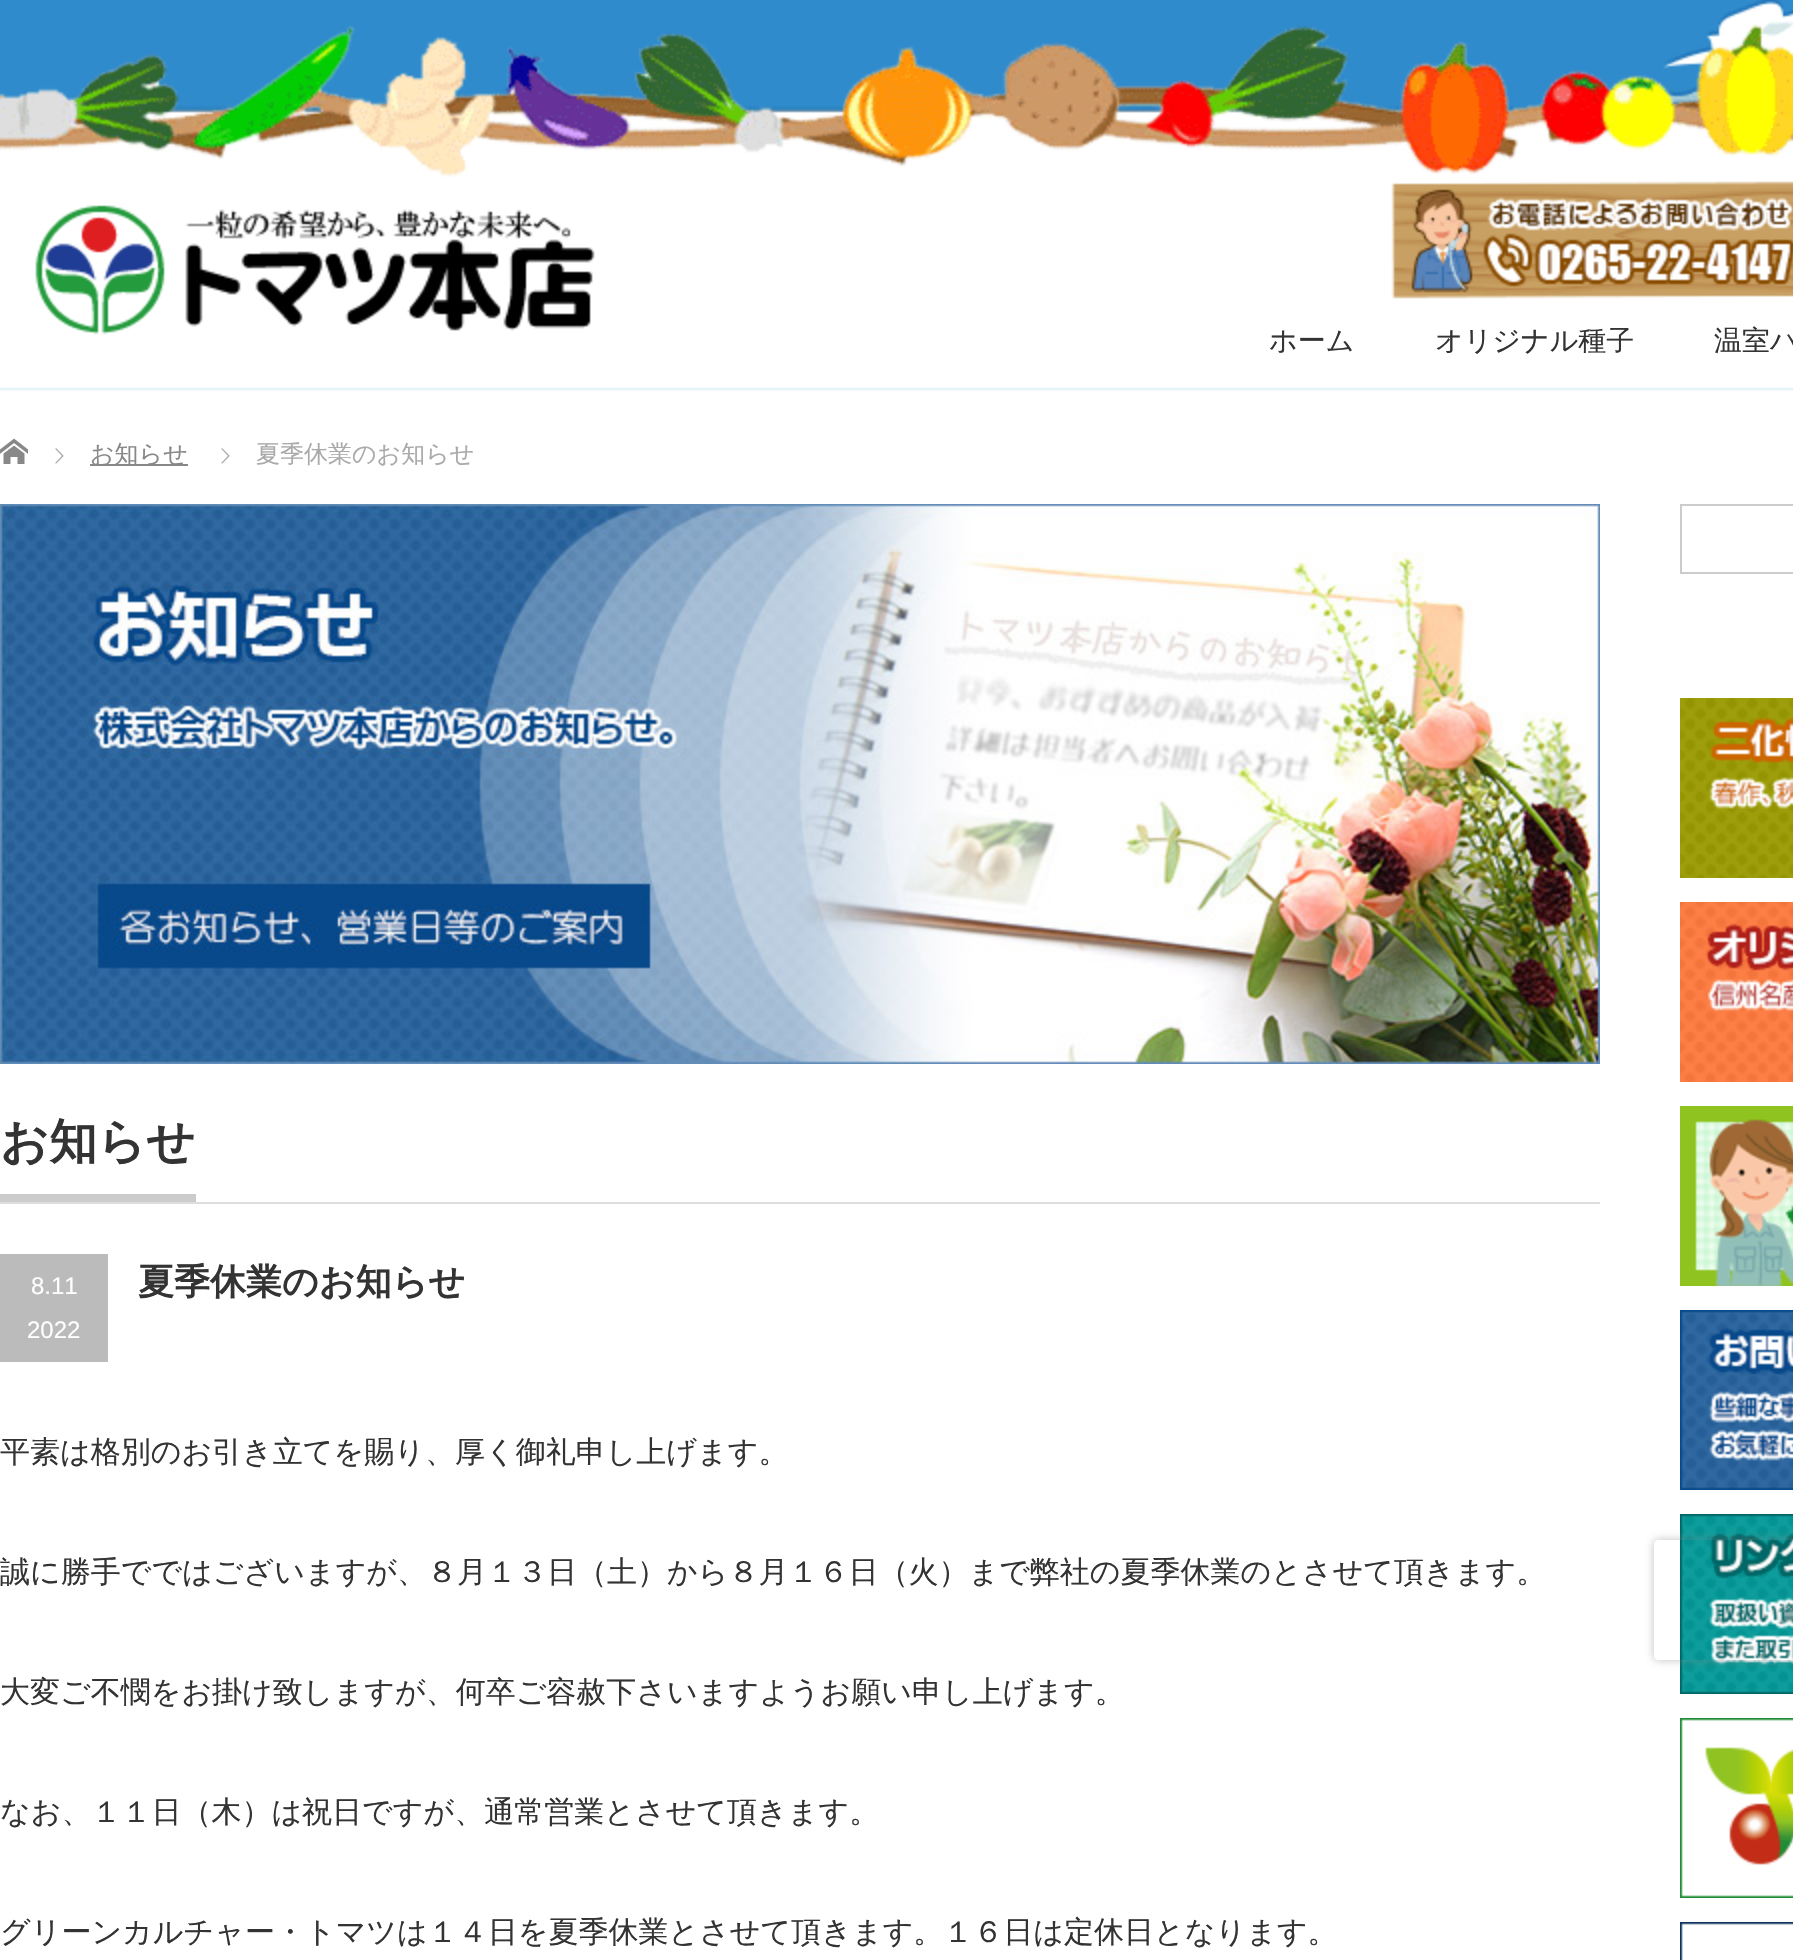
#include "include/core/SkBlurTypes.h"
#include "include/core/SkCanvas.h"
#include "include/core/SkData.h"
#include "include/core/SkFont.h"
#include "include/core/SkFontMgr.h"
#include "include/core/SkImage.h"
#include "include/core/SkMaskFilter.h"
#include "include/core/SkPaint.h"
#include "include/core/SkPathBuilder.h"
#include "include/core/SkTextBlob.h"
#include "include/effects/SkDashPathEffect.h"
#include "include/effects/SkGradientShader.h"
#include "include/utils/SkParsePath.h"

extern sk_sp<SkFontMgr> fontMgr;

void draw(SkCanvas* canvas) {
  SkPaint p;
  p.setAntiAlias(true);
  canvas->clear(SK_ColorWHITE);
  canvas->drawImageRect(SkImages::DeferredFromEncodedData(SkData::MakeFromFileName("images/1.png")), SkRect::MakeLTRB(0, 0, 1793, 391), SkSamplingOptions());
  canvas->drawImageRect(SkImages::DeferredFromEncodedData(SkData::MakeFromFileName("images/2.png")), SkRect::MakeLTRB(35, 205, 595, 335), SkSamplingOptions());
  canvas->drawImageRect(SkImages::DeferredFromEncodedData(SkData::MakeFromFileName("images/3.png")), SkRect::MakeLTRB(1391, 181, 1793, 299), SkSamplingOptions());
  canvas->drawImageRect(SkImages::DeferredFromEncodedData(SkData::MakeFromFileName("images/4.png")), SkRect::MakeLTRB(0, 438, 28, 464), SkSamplingOptions());
  canvas->drawImageRect(SkImages::DeferredFromEncodedData(SkData::MakeFromFileName("images/5.png")), SkRect::MakeLTRB(55, 448, 64, 464), SkSamplingOptions());
  p.setColor(SkColorSetRGB(136, 136, 136));
  canvas->drawRect(SkRect::MakeLTRB(90, 464, 188, 466), p);
  canvas->drawImageRect(SkImages::DeferredFromEncodedData(SkData::MakeFromFileName("images/5.png")), SkRect::MakeLTRB(221, 448, 230, 464), SkSamplingOptions());
  canvas->drawImageRect(SkImages::DeferredFromEncodedData(SkData::MakeFromFileName("images/6.png")), SkRect::MakeLTRB(0, 504, 1600, 1064), SkSamplingOptions());
  p.setColor(SkColorSetRGB(221, 221, 221));
  canvas->drawRect(SkRect::MakeLTRB(0, 1202, 1600, 1204), p);
  p.setColor(SkColorSetRGB(204, 204, 204));
  canvas->drawRect(SkRect::MakeLTRB(0, 1194, 196, 1202), p);
  p.setColor(SkColorSetRGB(187, 187, 187));
  canvas->drawRect(SkRect::MakeLTRB(0, 1254, 108, 1362), p);
  p.setStyle(SkPaint::kStroke_Style);
  p.setStrokeWidth(2);
  p.setColor(SkColorSetRGB(204, 204, 204));
  canvas->drawRect(SkRect::MakeLTRB(1681, 505, 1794, 573), p);
  canvas->drawImageRect(SkImages::DeferredFromEncodedData(SkData::MakeFromFileName("images/7.png")), SkRect::MakeLTRB(1680, 698, 1793, 878), SkSamplingOptions());
  canvas->drawImageRect(SkImages::DeferredFromEncodedData(SkData::MakeFromFileName("images/8.png")), SkRect::MakeLTRB(1680, 902, 1793, 1082), SkSamplingOptions());
  canvas->drawImageRect(SkImages::DeferredFromEncodedData(SkData::MakeFromFileName("images/9.png")), SkRect::MakeLTRB(1680, 1106, 1793, 1286), SkSamplingOptions());
  canvas->drawImageRect(SkImages::DeferredFromEncodedData(SkData::MakeFromFileName("images/10.png")), SkRect::MakeLTRB(1680, 1310, 1793, 1490), SkSamplingOptions());
  canvas->drawImageRect(SkImages::DeferredFromEncodedData(SkData::MakeFromFileName("images/11.png")), SkRect::MakeLTRB(1680, 1514, 1793, 1694), SkSamplingOptions());
  canvas->drawImageRect(SkImages::DeferredFromEncodedData(SkData::MakeFromFileName("images/12.png")), SkRect::MakeLTRB(1680, 1718, 1793, 1898), SkSamplingOptions());
  canvas->drawImageRect(SkImages::DeferredFromEncodedData(SkData::MakeFromFileName("images/13.png")), SkRect::MakeLTRB(1680, 1922, 1793, 1960), SkSamplingOptions());
  canvas->save();
  canvas->clipPath(SkPathBuilder(SkPathFillType::kEvenOdd).moveTo(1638, 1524).lineTo(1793, 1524).lineTo(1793, 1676).lineTo(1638, 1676).close().moveTo(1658, 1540).lineTo(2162, 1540).cubicTo(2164, 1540, 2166, 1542, 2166, 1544).lineTo(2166, 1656).cubicTo(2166, 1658, 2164, 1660, 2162, 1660).lineTo(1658, 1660).cubicTo(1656, 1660, 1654, 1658, 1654, 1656).lineTo(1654, 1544).cubicTo(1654, 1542, 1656, 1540, 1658, 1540).close().detach(), true);
  p.setStyle(SkPaint::kFill_Style);
  p.setColor(SkColorSetARGB(128, 128, 128, 128));
  p.setMaskFilter(SkMaskFilter::MakeBlur(kNormal_SkBlurStyle, 5));
  canvas->drawRoundRect(SkRect::MakeLTRB(1654, 1540, 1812, 1660), 4, 4, p);
  p.setMaskFilter(nullptr);
  canvas->restore();
  SkFont font1(fontMgr->matchFamilyStyle("WenQuanYi Zen Hei", SkFontStyle(500, SkFontStyle::kNormal_Width, SkFontStyle::kUpright_Slant)), 28);
  font1.setSubpixel(true);
  p.setColor(SkColorSetRGB(51, 51, 51));
  canvas->drawString("ホーム", 1269, 350, font1, p);
  canvas->drawString("オリジナル種子", 1435, 350, font1, p);
  canvas->drawString("温室ハ", 1714, 350, font1, p);
  SkFont font2(fontMgr->matchFamilyStyle("WenQuanYi Zen Hei", SkFontStyle(500, SkFontStyle::kNormal_Width, SkFontStyle::kUpright_Slant)), 24);
  font2.setSubpixel(true);
  p.setColor(SkColorSetRGB(136, 136, 136));
  canvas->drawString("お知らせ", 90, 462, font2, p);
  p.setColor(SkColorSetRGB(170, 170, 170));
  canvas->drawString("夏季休業のお知らせ", 256, 462, font2, p);
  SkFont font3(fontMgr->matchFamilyStyle("WenQuanYi Zen Hei", SkFontStyle::Bold()), 48);
  font3.setSubpixel(true);
  p.setColor(SkColorSetRGB(51, 51, 51));
  canvas->drawString("お知らせ", 0, 1158, font3, p);
  SkFont font4(fontMgr->matchFamilyStyle("Liberation Sans", SkFontStyle::Normal()), 24);
  font4.setSubpixel(true);
  p.setColor(SK_ColorWHITE);
  canvas->drawString("8.11", 31, 1294, font4, p);
  canvas->drawString("2022", 27, 1338, font4, p);
  SkFont font5(fontMgr->matchFamilyStyle("WenQuanYi Zen Hei", SkFontStyle::Bold()), 36);
  font5.setSubpixel(true);
  p.setColor(SkColorSetRGB(51, 51, 51));
  canvas->drawString("夏季休業のお知らせ", 138, 1294, font5, p);
  SkFont font6(fontMgr->matchFamilyStyle("WenQuanYi Zen Hei", SkFontStyle(500, SkFontStyle::kNormal_Width, SkFontStyle::kUpright_Slant)), 30);
  font6.setSubpixel(true);
  canvas->drawString("平素は格別のお引き立てを賜り、厚く御礼申し上げます。", 0, 1462, font6, p);
  canvas->drawString("誠に勝手でではございますが、８月１３日（土）から８月１６日（火）まで弊社の夏季休業のとさせて頂きます。", 0, 1582, font6, p);
  canvas->drawString("大変ご不憫をお掛け致しますが、何卒ご容赦下さいますようお願い申し上げます。", 0, 1702, font6, p);
  canvas->drawString("なお、１１日（木）は祝日ですが、通常営業とさせて頂きます。", 0, 1822, font6, p);
  canvas->drawString("グリーンカルチャー・トマツは１４日を夏季休業とさせて頂きます。１６日は定休日となります。", 0, 1942, font6, p);
}
